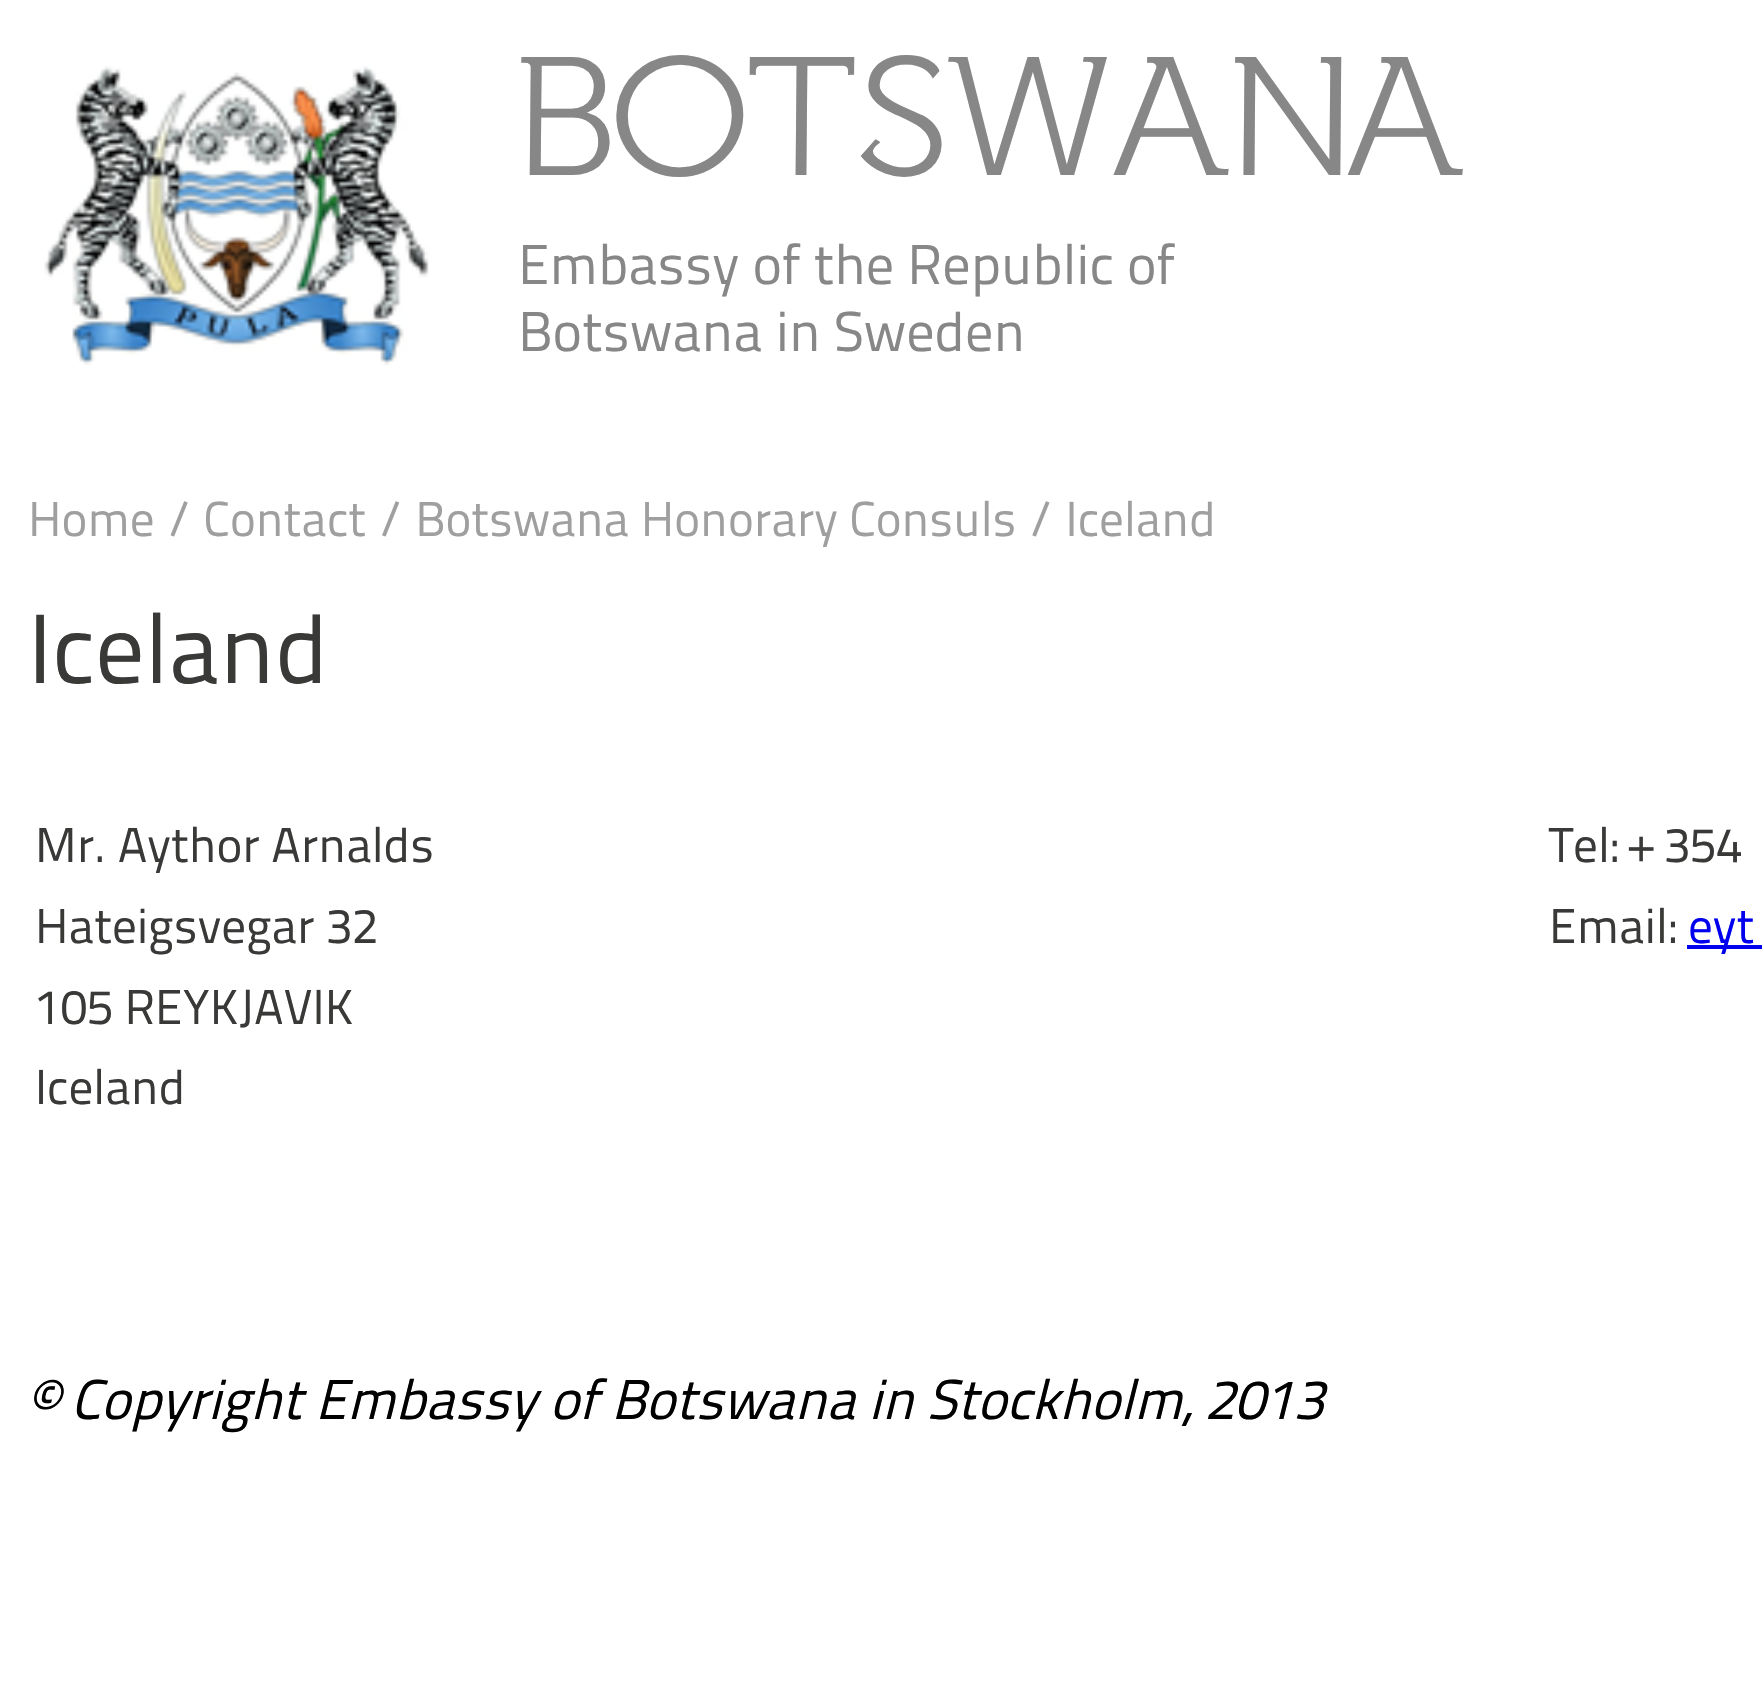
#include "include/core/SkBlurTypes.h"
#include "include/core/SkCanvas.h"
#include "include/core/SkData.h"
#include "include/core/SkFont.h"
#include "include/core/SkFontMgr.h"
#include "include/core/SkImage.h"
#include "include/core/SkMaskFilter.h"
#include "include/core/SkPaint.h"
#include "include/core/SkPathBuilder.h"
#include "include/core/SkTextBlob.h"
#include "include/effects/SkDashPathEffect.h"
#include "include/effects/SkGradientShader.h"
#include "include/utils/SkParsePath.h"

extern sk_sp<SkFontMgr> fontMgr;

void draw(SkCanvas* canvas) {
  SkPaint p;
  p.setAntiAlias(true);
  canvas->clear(SK_ColorWHITE);
  canvas->drawImageRect(SkImages::DeferredFromEncodedData(SkData::MakeFromFileName("images/1.png")), SkRect::MakeLTRB(44, 66, 429, 365), SkSamplingOptions());
  p.setColor(SkColorSetRGB(0, 0, 238));
  canvas->drawRect(SkRect::MakeLTRB(1687, 945, 1762, 949), p);
  SkFont font1(fontMgr->matchFamilyStyle("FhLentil", SkFontStyle::Normal()), 161);
  font1.setSubpixel(true);
  p.setColor(SkColorSetRGB(135, 135, 135));
  canvas->drawString("BOTSWANA", 518, 175, font1, p);
  SkFont font2(fontMgr->matchFamilyStyle("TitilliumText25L", SkFontStyle::Normal()), 56);
  font2.setSubpixel(true);
  canvas->drawString("Embassy of the Republic of", 518, 284, font2, p);
  canvas->drawString("Botswana in Sweden", 518, 351, font2, p);
  SkFont font3(fontMgr->matchFamilyStyle("TitilliumText25L", SkFontStyle::Normal()), 49);
  font3.setSubpixel(true);
  p.setColor(SkColorSetRGB(159, 159, 159));
  canvas->drawString("Home / Contact / Botswana Honorary Consuls / Iceland", 28, 536, font3, p);
  SkFont font4(fontMgr->matchFamilyStyle("TitilliumText25L", SkFontStyle::Normal()), 98);
  font4.setSubpixel(true);
  p.setColor(SkColorSetRGB(57, 57, 56));
  canvas->drawString("Iceland", 28, 683, font4, p);
  canvas->drawString("Mr. Aythor Arnalds", 35, 862, font3, p);
  canvas->drawString("Tel: + 354", 1549, 862, font3, p);
  canvas->drawString("Hateigsvegar 32", 35, 943, font3, p);
  canvas->drawString("Email:", 1549, 943, font3, p);
  p.setColor(SkColorSetRGB(0, 0, 238));
  canvas->drawString("eyt", 1688, 943, font3, p);
  p.setColor(SkColorSetRGB(57, 57, 56));
  canvas->drawString("105 REYKJAVIK", 35, 1024, font3, p);
  canvas->drawString("Iceland", 35, 1104, font3, p);
  SkFont font5(fontMgr->matchFamilyStyle("TitilliumText25L", SkFontStyle::Italic()), 56);
  font5.setSubpixel(true);
  p.setColor(SK_ColorBLACK);
  canvas->drawString("© Copyright Embassy of Botswana in Stockholm, 2013", 28, 1419, font5, p);
}
